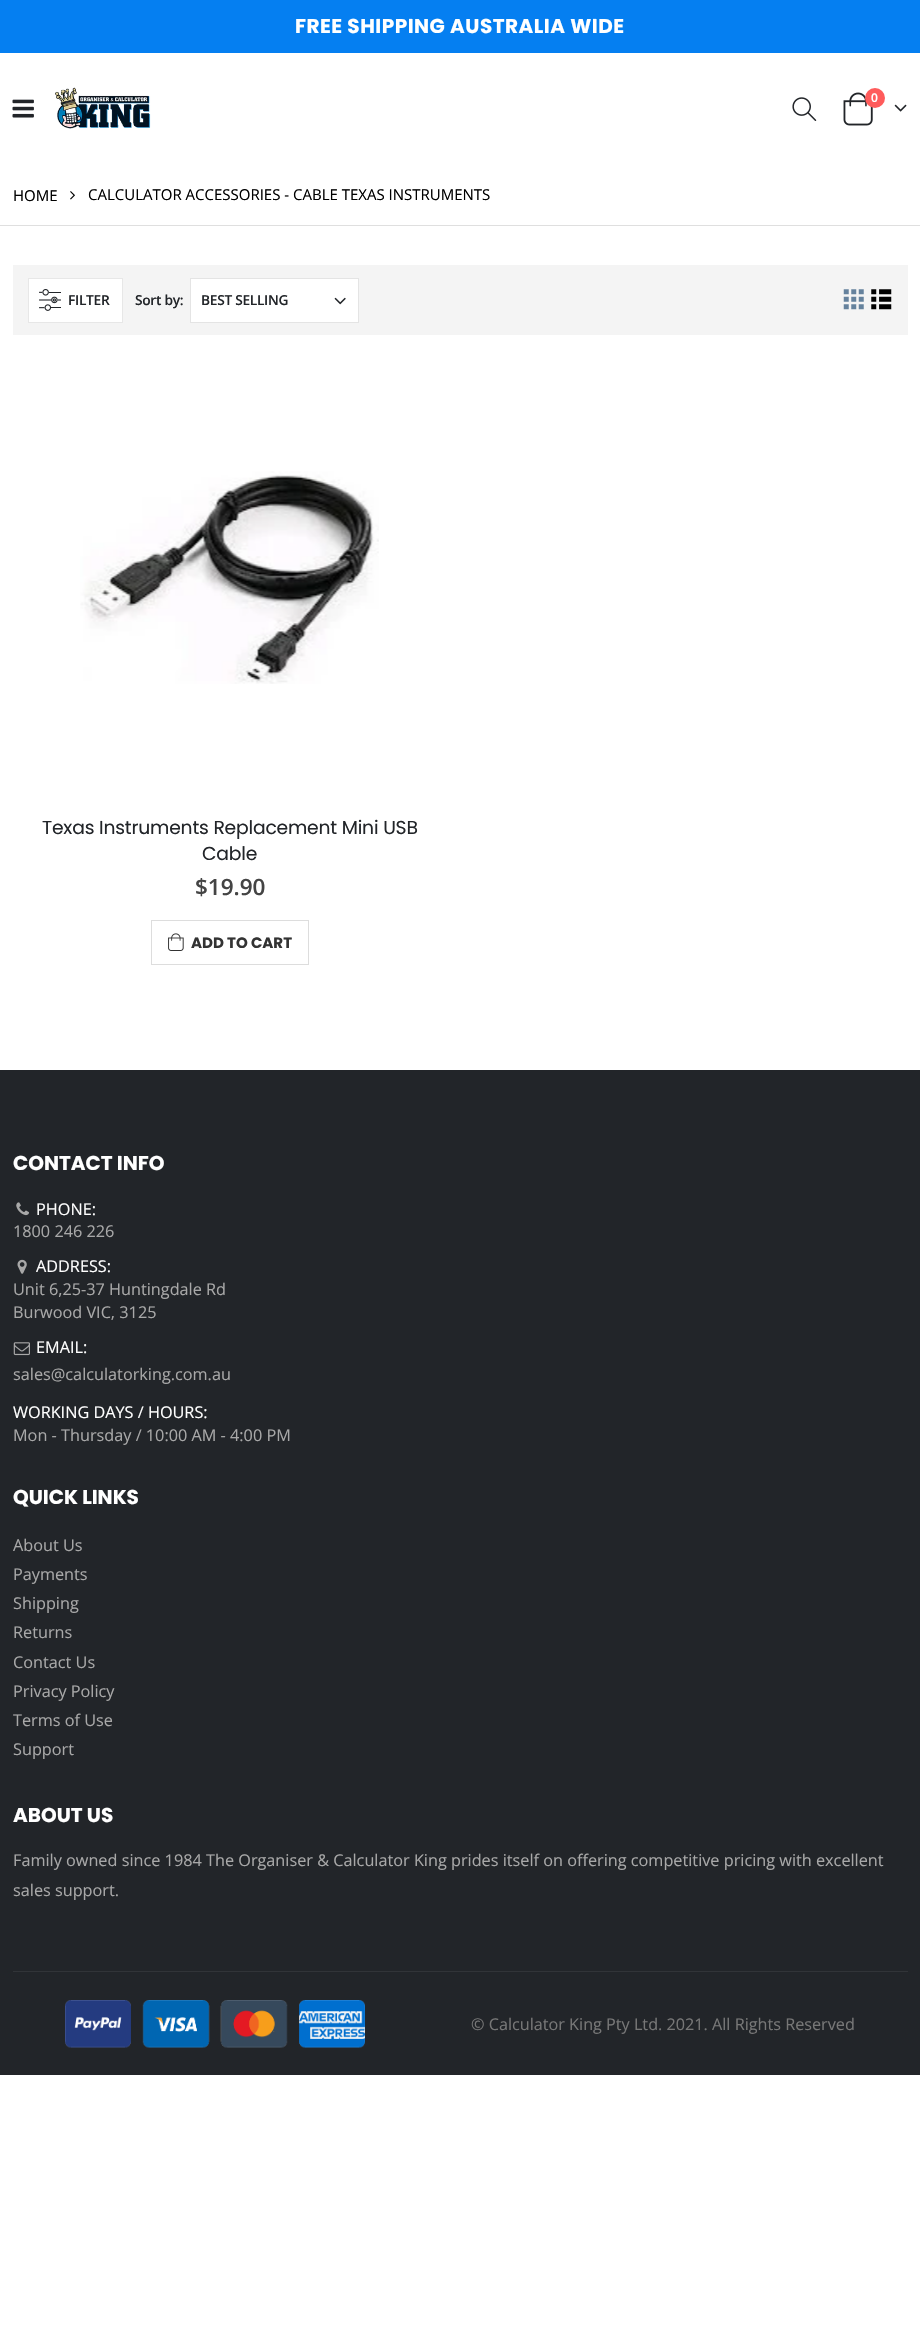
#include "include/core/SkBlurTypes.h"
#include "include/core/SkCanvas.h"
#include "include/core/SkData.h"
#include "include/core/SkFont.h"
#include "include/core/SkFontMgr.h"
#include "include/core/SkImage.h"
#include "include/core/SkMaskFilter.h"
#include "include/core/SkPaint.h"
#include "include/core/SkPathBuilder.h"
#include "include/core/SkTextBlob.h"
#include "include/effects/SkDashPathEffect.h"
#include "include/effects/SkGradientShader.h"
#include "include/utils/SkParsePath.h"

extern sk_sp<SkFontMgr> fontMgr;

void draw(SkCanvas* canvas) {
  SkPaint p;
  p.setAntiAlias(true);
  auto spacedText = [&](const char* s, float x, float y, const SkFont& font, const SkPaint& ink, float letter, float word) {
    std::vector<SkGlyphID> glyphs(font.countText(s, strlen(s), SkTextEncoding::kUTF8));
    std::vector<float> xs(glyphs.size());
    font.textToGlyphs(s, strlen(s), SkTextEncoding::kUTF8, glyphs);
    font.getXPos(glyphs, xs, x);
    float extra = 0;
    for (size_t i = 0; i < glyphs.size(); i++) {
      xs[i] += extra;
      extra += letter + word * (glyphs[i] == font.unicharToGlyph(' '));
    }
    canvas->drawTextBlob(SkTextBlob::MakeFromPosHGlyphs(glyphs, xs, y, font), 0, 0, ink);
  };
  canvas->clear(SK_ColorWHITE);
  p.setColor(SkColorSetRGB(5, 127, 241));
  canvas->drawRect(SkRect::MakeLTRB(0, 0, 920, 53), p);
  canvas->drawImageRect(SkImages::DeferredFromEncodedData(SkData::MakeFromFileName("images/1.png")), SkRect::MakeLTRB(12, 99, 34, 118), SkSamplingOptions());
  canvas->drawImageRect(SkImages::DeferredFromEncodedData(SkData::MakeFromFileName("images/2.png")), SkRect::MakeLTRB(55, 87, 151, 129), SkSamplingOptions());
  canvas->drawImageRect(SkImages::DeferredFromEncodedData(SkData::MakeFromFileName("images/3.png")), SkRect::MakeLTRB(792, 97, 817, 121), SkSamplingOptions());
  canvas->drawImageRect(SkImages::DeferredFromEncodedData(SkData::MakeFromFileName("images/4.png")), SkRect::MakeLTRB(843, 92, 873, 126), SkSamplingOptions());
  p.setColor(SkColorSetRGB(255, 91, 91));
  canvas->drawCircle(875, 98, 10, p);
  canvas->drawImageRect(SkImages::DeferredFromEncodedData(SkData::MakeFromFileName("images/5.png")), SkRect::MakeLTRB(894, 104, 907, 112), SkSamplingOptions());
  p.setColor(SkColorSetRGB(223, 223, 223));
  canvas->drawRect(SkRect::MakeLTRB(0, 225, 920, 226), p);
  canvas->drawImageRect(SkImages::DeferredFromEncodedData(SkData::MakeFromFileName("images/6.png")), SkRect::MakeLTRB(70, 191, 75, 200), SkSamplingOptions());
  p.setColor(SkColorSetRGB(244, 244, 244));
  canvas->drawRect(SkRect::MakeLTRB(13, 265, 908, 335), p);
  p.setColor(SK_ColorWHITE);
  canvas->drawRect(SkRect::MakeLTRB(28.5f, 278.5f, 122.5f, 322.5f), p);
  p.setStyle(SkPaint::kStroke_Style);
  p.setStrokeWidth(1);
  p.setColor(SkColorSetRGB(231, 231, 231));
  canvas->drawRect(SkRect::MakeLTRB(28.5f, 278.5f, 122.5f, 322.5f), p);
  canvas->drawImageRect(SkImages::DeferredFromEncodedData(SkData::MakeFromFileName("images/7.png")), SkRect::MakeLTRB(39, 289, 61, 311), SkSamplingOptions());
  p.setStyle(SkPaint::kFill_Style);
  p.setColor(SK_ColorWHITE);
  canvas->drawRect(SkRect::MakeLTRB(190.5f, 278.5f, 358.5f, 322.5f), p);
  p.setStyle(SkPaint::kStroke_Style);
  p.setColor(SkColorSetRGB(228, 228, 228));
  canvas->drawRect(SkRect::MakeLTRB(190.5f, 278.5f, 358.5f, 322.5f), p);
  canvas->drawImageRect(SkImages::DeferredFromEncodedData(SkData::MakeFromFileName("images/8.png")), SkRect::MakeLTRB(334, 297, 346, 305), SkSamplingOptions());
  canvas->drawImageRect(SkImages::DeferredFromEncodedData(SkData::MakeFromFileName("images/9.png")), SkRect::MakeLTRB(843, 289, 864, 310), SkSamplingOptions());
  canvas->drawImageRect(SkImages::DeferredFromEncodedData(SkData::MakeFromFileName("images/10.png")), SkRect::MakeLTRB(871, 289, 892, 310), SkSamplingOptions());
  canvas->drawImageRect(SkImages::DeferredFromEncodedData(SkData::MakeFromFileName("images/11.png")), SkRect::MakeLTRB(80, 471, 379, 684), SkSamplingOptions());
  p.setColor(SkColorSetRGB(221, 221, 221));
  canvas->drawRect(SkRect::MakeLTRB(151.5f, 920.5f, 308.5f, 964.5f), p);
  canvas->drawImageRect(SkImages::DeferredFromEncodedData(SkData::MakeFromFileName("images/12.png")), SkRect::MakeLTRB(168, 933, 184, 951), SkSamplingOptions());
  p.setStyle(SkPaint::kFill_Style);
  p.setColor(SkColorSetRGB(34, 37, 41));
  canvas->drawRect(SkRect::MakeLTRB(0, 1070, 920, 2075), p);
  canvas->drawImageRect(SkImages::DeferredFromEncodedData(SkData::MakeFromFileName("images/13.png")), SkRect::MakeLTRB(16, 1202, 29, 1216), SkSamplingOptions());
  canvas->drawImageRect(SkImages::DeferredFromEncodedData(SkData::MakeFromFileName("images/14.png")), SkRect::MakeLTRB(17, 1259, 27, 1274), SkSamplingOptions());
  canvas->drawImageRect(SkImages::DeferredFromEncodedData(SkData::MakeFromFileName("images/15.png")), SkRect::MakeLTRB(13, 1342, 30, 1356), SkSamplingOptions());
  p.setColor(SkColorSetRGB(49, 52, 56));
  canvas->drawRect(SkRect::MakeLTRB(13, 1971, 908, 1972), p);
  canvas->drawImageRect(SkImages::DeferredFromEncodedData(SkData::MakeFromFileName("images/16.png")), SkRect::MakeLTRB(65, 2000, 365, 2048), SkSamplingOptions());
  SkFont font1(fontMgr->matchFamilyStyle("Poppins", SkFontStyle::Bold()), 20);
  font1.setSubpixel(true);
  p.setColor(SK_ColorWHITE);
  spacedText("FREE SHIPPING AUSTRALIA WIDE", 295, 33, font1, p, 0.5f, 0);
  SkFont font2(fontMgr->matchFamilyStyle("Open Sans", SkFontStyle(600, SkFontStyle::kNormal_Width, SkFontStyle::kUpright_Slant)), 12);
  font2.setSubpixel(true);
  canvas->drawString("0", 871, 102, font2, p);
  SkFont font3(fontMgr->matchFamilyStyle("Open Sans", SkFontStyle::Normal()), 15);
  font3.setSubpixel(true);
  p.setColor(SK_ColorBLACK);
  canvas->drawString("HOME", 13, 201, font3, p);
  canvas->drawString("CALCULATOR ACCESSORIES - CABLE TEXAS INSTRUMENTS", 88, 200, font3, p);
  SkFont font4(fontMgr->matchFamilyStyle("Open Sans", SkFontStyle(600, SkFontStyle::kNormal_Width, SkFontStyle::kUpright_Slant)), 13.75f);
  font4.setSubpixel(true);
  p.setColor(SkColorSetRGB(34, 37, 41));
  spacedText("FILTER", 68, 305, font4, p, -0.3f, 0);
  spacedText("Sort by:", 135, 305, font4, p, -0.3f, 0);
  spacedText("BEST SELLING", 201, 305, font4, p, -0.3f, 0);
  SkFont font5(fontMgr->matchFamilyStyle("Poppins", SkFontStyle::Normal()), 18.75f);
  font5.setSubpixel(true);
  spacedText("Texas Instruments Replacement Mini USB", 42, 834, font5, p, -0.2f, 0);
  spacedText("Cable", 202, 860, font5, p, -0.2f, 0);
  SkFont font6(fontMgr->matchFamilyStyle("Open Sans", SkFontStyle(600, SkFontStyle::kNormal_Width, SkFontStyle::kUpright_Slant)), 22.5f);
  font6.setSubpixel(true);
  p.setColor(SkColorSetRGB(68, 68, 68));
  canvas->drawString("$19.90", 195, 895, font6, p);
  SkFont font7(fontMgr->matchFamilyStyle("Poppins", SkFontStyle::Bold()), 15);
  font7.setSubpixel(true);
  p.setColor(SkColorSetRGB(51, 51, 51));
  canvas->drawString("ADD TO CART", 191, 948, font7, p);
  p.setColor(SK_ColorWHITE);
  canvas->drawString("CONTACT INFO", 13, 1170, font1, p);
  SkFont font8(fontMgr->matchFamilyStyle("Open Sans", SkFontStyle::Normal()), 16.25f);
  font8.setSubpixel(true);
  canvas->drawString("PHONE:", 36, 1215, font8, p);
  p.setColor(SkColorSetRGB(168, 168, 168));
  canvas->drawString("1800 246 226", 13, 1237, font8, p);
  p.setColor(SK_ColorWHITE);
  canvas->drawString("ADDRESS:", 36, 1272, font8, p);
  p.setColor(SkColorSetRGB(168, 168, 168));
  canvas->drawString("Unit 6,25-37 Huntingdale Rd", 13, 1295, font8, p);
  canvas->drawString("Burwood VIC, 3125", 13, 1318, font8, p);
  p.setColor(SK_ColorWHITE);
  canvas->drawString("EMAIL:", 36, 1353, font8, p);
  p.setColor(SkColorSetRGB(168, 168, 168));
  canvas->drawString("sales@calculatorking.com.au", 13, 1380, font8, p);
  p.setColor(SK_ColorWHITE);
  canvas->drawString("WORKING DAYS / HOURS:", 13, 1418, font8, p);
  p.setColor(SkColorSetRGB(168, 168, 168));
  canvas->drawString("Mon - Thursday / 10:00 AM - 4:00 PM", 13, 1441, font8, p);
  p.setColor(SK_ColorWHITE);
  canvas->drawString("QUICK LINKS", 13, 1504, font1, p);
  p.setColor(SkColorSetRGB(168, 168, 168));
  canvas->drawString("About Us", 13, 1551, font8, p);
  canvas->drawString("Payments", 13, 1580, font8, p);
  canvas->drawString("Shipping", 13, 1609, font8, p);
  canvas->drawString("Returns", 13, 1638, font8, p);
  canvas->drawString("Contact Us", 13, 1668, font8, p);
  canvas->drawString("Privacy Policy", 13, 1697, font8, p);
  canvas->drawString("Terms of Use", 13, 1726, font8, p);
  canvas->drawString("Support", 13, 1755, font8, p);
  p.setColor(SK_ColorWHITE);
  canvas->drawString("ABOUT US", 13, 1822, font1, p);
  p.setColor(SkColorSetRGB(168, 168, 168));
  canvas->drawString("Family owned since 1984 The Organiser & Calculator King prides itself on offering competitive pricing with excellent", 13, 1866, font8, p);
  canvas->drawString("sales support.", 13, 1896, font8, p);
  SkFont font9(fontMgr->matchFamilyStyle("Open Sans", SkFontStyle::Normal()), 16.2f);
  font9.setSubpixel(true);
  p.setColor(SkColorSetRGB(119, 119, 119));
  canvas->drawString("© Calculator King Pty Ltd. 2021. All Rights Reserved", 471, 2030, font9, p);
}
